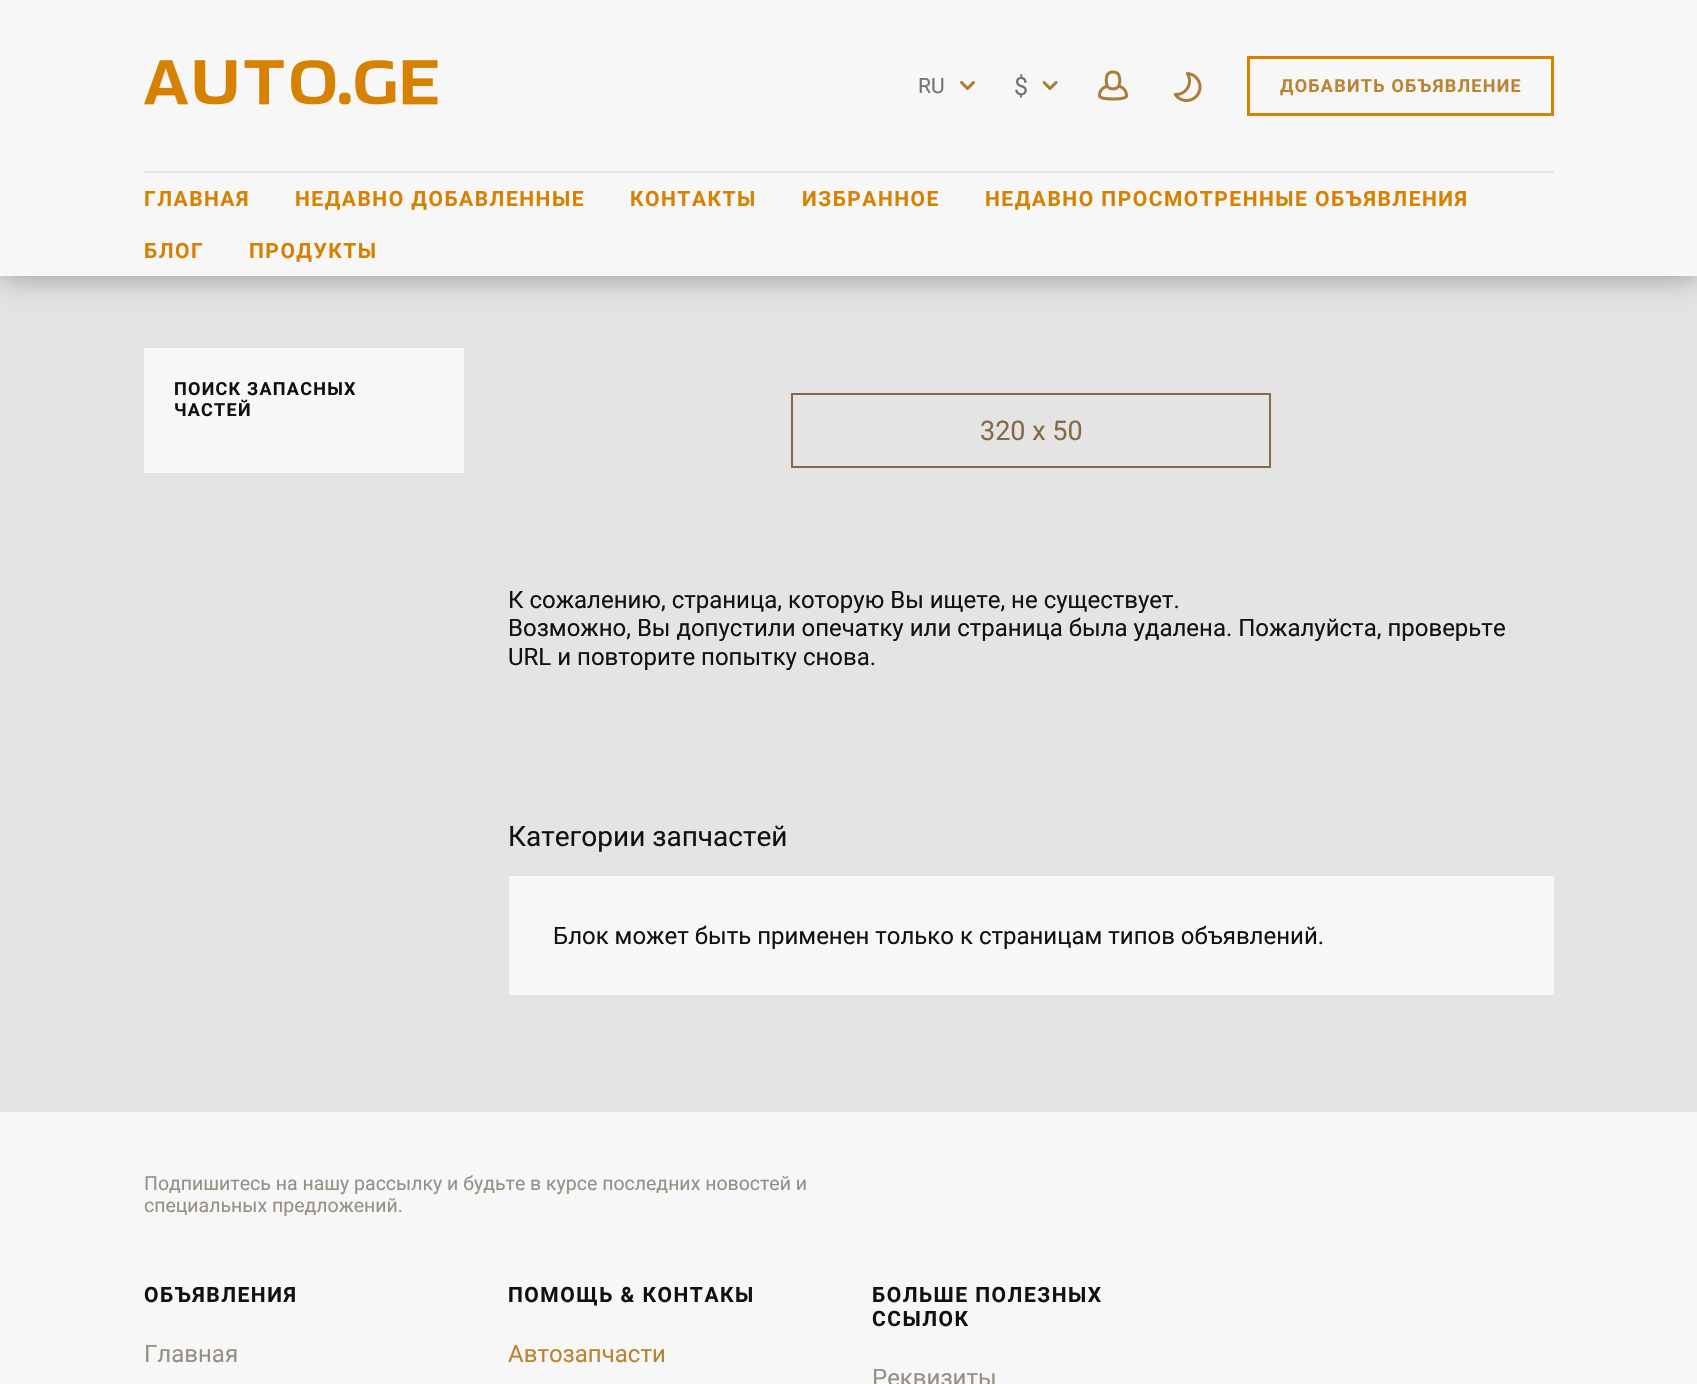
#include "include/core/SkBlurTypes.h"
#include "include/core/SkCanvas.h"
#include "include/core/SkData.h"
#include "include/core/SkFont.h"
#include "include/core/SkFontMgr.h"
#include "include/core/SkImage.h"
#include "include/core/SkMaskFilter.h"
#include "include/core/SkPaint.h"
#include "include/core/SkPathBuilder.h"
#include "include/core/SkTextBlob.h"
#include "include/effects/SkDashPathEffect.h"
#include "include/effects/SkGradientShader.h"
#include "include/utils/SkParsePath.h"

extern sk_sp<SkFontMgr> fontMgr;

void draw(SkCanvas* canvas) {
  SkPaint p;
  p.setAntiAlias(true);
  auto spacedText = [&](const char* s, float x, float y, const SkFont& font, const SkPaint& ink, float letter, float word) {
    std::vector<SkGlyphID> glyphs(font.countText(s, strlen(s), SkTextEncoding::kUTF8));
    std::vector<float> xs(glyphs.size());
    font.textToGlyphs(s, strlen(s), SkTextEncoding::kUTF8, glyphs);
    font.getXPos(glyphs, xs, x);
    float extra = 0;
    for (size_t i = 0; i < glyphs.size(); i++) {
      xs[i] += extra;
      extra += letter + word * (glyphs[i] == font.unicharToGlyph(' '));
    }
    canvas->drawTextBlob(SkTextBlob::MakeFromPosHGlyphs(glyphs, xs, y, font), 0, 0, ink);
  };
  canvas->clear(SkColorSetRGB(228, 228, 228));
  p.setColor(SkColorSetARGB(92, 0, 0, 0));
  p.setMaskFilter(SkMaskFilter::MakeBlur(kNormal_SkBlurStyle, 15));
  canvas->drawRect(SkRect::MakeLTRB(0, 0, 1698, 276), p);
  p.setMaskFilter(nullptr);
  p.setColor(SkColorSetRGB(247, 247, 247));
  canvas->drawRect(SkRect::MakeLTRB(0, 0, 1697, 276), p);
  canvas->drawImageRect(SkImages::DeferredFromEncodedData(SkData::MakeFromFileName("images/1.png")), SkRect::MakeLTRB(144, 60, 438, 105), SkSamplingOptions());
  canvas->drawImageRect(SkImages::DeferredFromEncodedData(SkData::MakeFromFileName("images/2.png")), SkRect::MakeLTRB(960, 81, 975, 90), SkSamplingOptions());
  canvas->drawImageRect(SkImages::DeferredFromEncodedData(SkData::MakeFromFileName("images/3.png")), SkRect::MakeLTRB(1043, 81, 1058, 90), SkSamplingOptions());
  canvas->drawImageRect(SkImages::DeferredFromEncodedData(SkData::MakeFromFileName("images/4.png")), SkRect::MakeLTRB(1098, 70, 1128, 101), SkSamplingOptions());
  canvas->drawImageRect(SkImages::DeferredFromEncodedData(SkData::MakeFromFileName("images/5.png")), SkRect::MakeLTRB(1173, 72, 1202, 102), SkSamplingOptions());
  p.setStyle(SkPaint::kStroke_Style);
  p.setStrokeWidth(3);
  p.setColor(SkColorSetRGB(215, 129, 0));
  canvas->drawRect(SkRect::MakeLTRB(1248.5f, 57.5f, 1552.5f, 114.5f), p);
  p.setStyle(SkPaint::kFill_Style);
  p.setColor(SkColorSetRGB(228, 228, 228));
  canvas->drawRect(SkRect::MakeLTRB(144, 171, 1554, 173), p);
  p.setColor(SkColorSetRGB(247, 247, 247));
  canvas->drawRect(SkRect::MakeLTRB(144, 348, 464, 473), p);
  p.setStyle(SkPaint::kStroke_Style);
  p.setStrokeWidth(2);
  p.setColor(SkColorSetRGB(133, 106, 69));
  canvas->drawRect(SkRect::MakeLTRB(792, 394, 1270, 467), p);
  p.setStyle(SkPaint::kFill_Style);
  p.setColor(SkColorSetRGB(247, 247, 247));
  canvas->drawRect(SkRect::MakeLTRB(509, 876, 1554, 995), p);
  canvas->drawRect(SkRect::MakeLTRB(0, 1112, 1697, 1384), p);
  SkFont font1(fontMgr->matchFamilyStyle("Roboto", SkFontStyle::Normal()), 21);
  font1.setSubpixel(true);
  p.setColor(SkColorSetRGB(116, 115, 114));
  canvas->drawString("RU", 918, 93, font1, p);
  SkFont font2(fontMgr->matchFamilyStyle("Roboto", SkFontStyle::Normal()), 25);
  font2.setSubpixel(true);
  canvas->drawString("$", 1014, 95, font2, p);
  SkFont font3(fontMgr->matchFamilyStyle("Roboto", SkFontStyle::Bold()), 18);
  font3.setSubpixel(true);
  p.setColor(SkColorSetRGB(187, 131, 48));
  spacedText("ДОБАВИТЬ ОБЪЯВЛЕНИЕ", 1280, 92, font3, p, 1.25f, 0);
  SkFont font4(fontMgr->matchFamilyStyle("Roboto", SkFontStyle::Bold()), 21);
  font4.setSubpixel(true);
  p.setColor(SkColorSetRGB(215, 129, 0));
  spacedText("ГЛАВНАЯ", 144, 206, font4, p, 1.5f, 0);
  spacedText("НЕДАВНО ДОБАВЛЕННЫЕ", 295, 206, font4, p, 1.5f, 0);
  spacedText("КОНТАКТЫ", 630, 206, font4, p, 1.5f, 0);
  spacedText("ИЗБРАННОЕ", 802, 206, font4, p, 1.5f, 0);
  spacedText("НЕДАВНО ПРОСМОТРЕННЫЕ ОБЪЯВЛЕНИЯ", 985, 206, font4, p, 1.5f, 0);
  spacedText("БЛОГ", 144, 258, font4, p, 1.5f, 0);
  spacedText("ПРОДУКТЫ", 249, 258, font4, p, 1.5f, 0);
  p.setColor(SkColorSetRGB(17, 17, 17));
  spacedText("ПОИСК ЗАПАСНЫХ", 174, 395, font3, p, 1.25f, 0);
  spacedText("ЧАСТЕЙ", 174, 416, font3, p, 1.25f, 0);
  SkFont font5(fontMgr->matchFamilyStyle("Roboto", SkFontStyle::Normal()), 27);
  font5.setSubpixel(true);
  p.setColor(SkColorSetRGB(133, 106, 69));
  canvas->drawString("320 x 50", 980, 440, font5, p);
  SkFont font6(fontMgr->matchFamilyStyle("Roboto", SkFontStyle::Normal()), 24);
  font6.setSubpixel(true);
  p.setColor(SkColorSetRGB(17, 17, 17));
  canvas->drawString("К сожалению, страница, которую Вы ищете, не существует.", 508, 608, font6, p);
  canvas->drawString("Возможно, Вы допустили опечатку или страница была удалена. Пожалуйста, проверьте", 508, 636, font6, p);
  canvas->drawString("URL и повторите попытку снова.", 508, 665, font6, p);
  SkFont font7(fontMgr->matchFamilyStyle("Roboto", SkFontStyle::Normal()), 28);
  font7.setSubpixel(true);
  canvas->drawString("Категории запчастей", 508, 846, font7, p);
  canvas->drawString("Блок может быть применен только к страницам типов объявлений.", 553, 944, font6, p);
  SkFont font8(fontMgr->matchFamilyStyle("Roboto", SkFontStyle::Normal()), 19.5f);
  font8.setSubpixel(true);
  p.setColor(SkColorSetRGB(150, 143, 132));
  canvas->drawString("Подпишитесь на нашу рассылку и будьте в курсе последних новостей и", 144, 1190, font8, p);
  canvas->drawString("специальных предложений.", 144, 1212, font8, p);
  p.setColor(SkColorSetRGB(17, 17, 17));
  spacedText("ОБЪЯВЛЕНИЯ", 144, 1302, font4, p, 1.5f, 0);
  p.setColor(SkColorSetRGB(150, 143, 132));
  canvas->drawString("Главная", 144, 1362, font6, p);
  p.setColor(SkColorSetRGB(17, 17, 17));
  spacedText("ПОМОЩЬ & КОНТАКЫ", 508, 1302, font4, p, 1.5f, 0);
  p.setColor(SkColorSetRGB(187, 131, 48));
  canvas->drawString("Автозапчасти", 508, 1362, font6, p);
  p.setColor(SkColorSetRGB(17, 17, 17));
  spacedText("БОЛЬШЕ ПОЛЕЗНЫХ", 872, 1302, font4, p, 1.5f, 0);
  spacedText("ССЫЛОК", 872, 1326, font4, p, 1.5f, 0);
  p.setColor(SkColorSetRGB(150, 143, 132));
  canvas->drawString("Реквизиты", 872, 1386, font6, p);
}
